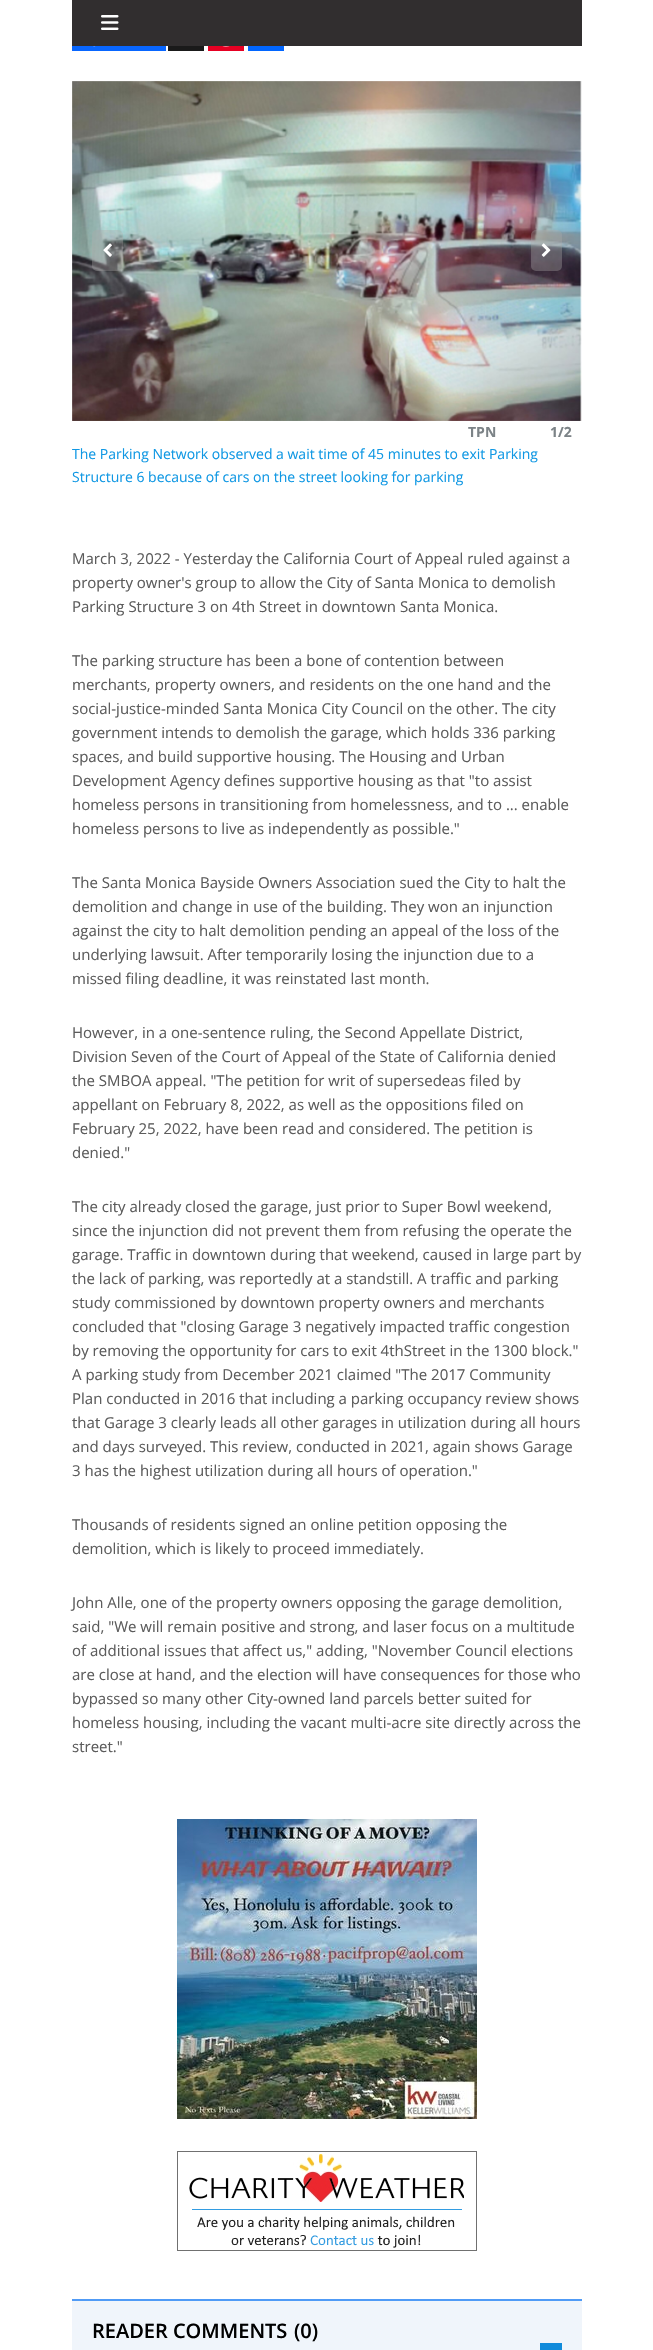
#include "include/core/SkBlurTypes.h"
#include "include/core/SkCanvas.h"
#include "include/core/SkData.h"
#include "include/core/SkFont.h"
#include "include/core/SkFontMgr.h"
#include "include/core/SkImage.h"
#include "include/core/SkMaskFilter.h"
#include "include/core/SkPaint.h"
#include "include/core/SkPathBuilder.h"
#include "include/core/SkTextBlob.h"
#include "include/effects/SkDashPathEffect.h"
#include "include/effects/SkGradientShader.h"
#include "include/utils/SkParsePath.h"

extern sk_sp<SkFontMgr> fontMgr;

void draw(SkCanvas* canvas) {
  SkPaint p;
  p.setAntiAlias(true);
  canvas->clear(SK_ColorWHITE);
  p.setColor(SkColorSetRGB(49, 46, 47));
  canvas->drawRect(SkRect::MakeLTRB(72, 0, 582, 46), p);
  canvas->drawImageRect(SkImages::DeferredFromEncodedData(SkData::MakeFromFileName("images/1.png")), SkRect::MakeLTRB(101, 15, 119, 30), SkSamplingOptions());
  p.setColor(SkColorSetRGB(8, 102, 255));
  canvas->drawRect(SkRect::MakeLTRB(72, 46, 166, 51), p);
  canvas->drawImageRect(SkImages::DeferredFromEncodedData(SkData::MakeFromFileName("images/2.png")), SkRect::MakeLTRB(93, 46, 96, 47), SkSamplingOptions());
  p.setColor(SkColorSetRGB(26, 26, 26));
  canvas->drawRect(SkRect::MakeLTRB(168, 46, 204, 51), p);
  p.setColor(SkColorSetRGB(230, 0, 35));
  canvas->drawRect(SkRect::MakeLTRB(208, 46, 244, 51), p);
  canvas->drawImageRect(SkImages::DeferredFromEncodedData(SkData::MakeFromFileName("images/3.png")), SkRect::MakeLTRB(222, 46, 230, 47), SkSamplingOptions());
  p.setColor(SkColorSetRGB(1, 102, 255));
  canvas->drawRect(SkRect::MakeLTRB(248, 46, 284, 51), p);
  canvas->drawImageRect(SkImages::DeferredFromEncodedData(SkData::MakeFromFileName("images/6.png")), SkRect::MakeLTRB(72, 81, 582, 421), SkSamplingOptions());
  p.setColor(SkColorSetARGB(89, 171, 169, 169));
  canvas->drawRoundRect(SkRect::MakeLTRB(92, 230, 123, 271), 5, 5, p);
  canvas->drawImageRect(SkImages::DeferredFromEncodedData(SkData::MakeFromFileName("images/4.png")), SkRect::MakeLTRB(103, 243, 112, 257), SkSamplingOptions());
  canvas->drawRoundRect(SkRect::MakeLTRB(531, 230, 562, 271), 5, 5, p);
  canvas->drawImageRect(SkImages::DeferredFromEncodedData(SkData::MakeFromFileName("images/5.png")), SkRect::MakeLTRB(541, 243, 551, 257), SkSamplingOptions());
  canvas->drawImageRect(SkImages::DeferredFromEncodedData(SkData::MakeFromFileName("images/7.png")), SkRect::MakeLTRB(177, 1819, 477, 2119), SkSamplingOptions());
  canvas->drawImageRect(SkImages::DeferredFromEncodedData(SkData::MakeFromFileName("images/8.png")), SkRect::MakeLTRB(177, 2151, 477, 2251), SkSamplingOptions());
  p.setColor(SkColorSetRGB(240, 245, 251));
  canvas->drawRect(SkRect::MakeLTRB(72, 2301, 582, 2350), p);
  p.setColor(SkColorSetRGB(80, 155, 246));
  canvas->drawRect(SkRect::MakeLTRB(72, 2299, 582, 2301), p);
  p.setColor(SkColorSetRGB(16, 139, 219));
  canvas->drawRect(SkRect::MakeLTRB(540, 2343, 562, 2350), p);
  SkFont font1(fontMgr->matchFamilyStyle("Open Sans", SkFontStyle::Bold()), 14);
  font1.setSubpixel(true);
  p.setColor(SkColorSetRGB(124, 131, 135));
  canvas->drawString("TPN", 468, 437, font1, p);
  canvas->drawString("1/2", 550, 437, font1, p);
  SkFont font2(fontMgr->matchFamilyStyle("Open Sans", SkFontStyle::Normal()), 14);
  font2.setSubpixel(true);
  p.setColor(SkColorSetRGB(16, 152, 228));
  canvas->drawString("The Parking Network observed a wait time of 45 minutes to exit Parking", 72, 459, font2, p);
  canvas->drawString("Structure 6 because of cars on the street looking for parking", 72, 482, font2, p);
  SkFont font3(fontMgr->matchFamilyStyle("Open Sans", SkFontStyle::Normal()), 15);
  font3.setSubpixel(true);
  p.setColor(SkColorSetRGB(92, 92, 92));
  canvas->drawString("March 3, 2022 - Yesterday the California Court of Appeal ruled against a", 72, 564, font3, p);
  canvas->drawString("property owner's group to allow the City of Santa Monica to demolish", 72, 588, font3, p);
  canvas->drawString("Parking Structure 3 on 4th Street in downtown Santa Monica.", 72, 612, font3, p);
  canvas->drawString("The parking structure has been a bone of contention between", 72, 666, font3, p);
  canvas->drawString("merchants, property owners, and residents on the one hand and the", 72, 690, font3, p);
  canvas->drawString("social-justice-minded Santa Monica City Council on the other. The city", 72, 714, font3, p);
  canvas->drawString("government intends to demolish the garage, which holds 336 parking", 72, 738, font3, p);
  canvas->drawString("spaces, and build supportive housing. The Housing and Urban", 72, 762, font3, p);
  canvas->drawString("Development Agency defines supportive housing as that \"to assist", 72, 786, font3, p);
  canvas->drawString("homeless persons in transitioning from homelessness, and to ... enable", 72, 810, font3, p);
  canvas->drawString("homeless persons to live as independently as possible.\"", 72, 834, font3, p);
  canvas->drawString("The Santa Monica Bayside Owners Association sued the City to halt the", 72, 888, font3, p);
  canvas->drawString("demolition and change in use of the building. They won an injunction", 72, 912, font3, p);
  canvas->drawString("against the city to halt demolition pending an appeal of the loss of the", 72, 936, font3, p);
  canvas->drawString("underlying lawsuit. After temporarily losing the injunction due to a", 72, 960, font3, p);
  canvas->drawString("missed filing deadline, it was reinstated last month.", 72, 984, font3, p);
  canvas->drawString("However, in a one-sentence ruling, the Second Appellate District,", 72, 1038, font3, p);
  canvas->drawString("Division Seven of the Court of Appeal of the State of California denied", 72, 1062, font3, p);
  canvas->drawString("the SMBOA appeal. \"The petition for writ of supersedeas filed by", 72, 1086, font3, p);
  canvas->drawString("appellant on February 8, 2022, as well as the oppositions filed on", 72, 1110, font3, p);
  canvas->drawString("February 25, 2022, have been read and considered. The petition is", 72, 1134, font3, p);
  canvas->drawString("denied.\"", 72, 1158, font3, p);
  canvas->drawString("The city already closed the garage, just prior to Super Bowl weekend,", 72, 1212, font3, p);
  canvas->drawString("since the injunction did not prevent them from refusing the operate the", 72, 1236, font3, p);
  canvas->drawString("garage. Traffic in downtown during that weekend, caused in large part by", 72, 1260, font3, p);
  canvas->drawString("the lack of parking, was reportedly at a standstill. A traffic and parking", 72, 1284, font3, p);
  canvas->drawString("study commissioned by downtown property owners and merchants", 72, 1308, font3, p);
  canvas->drawString("concluded that \"closing Garage 3 negatively impacted traffic congestion", 72, 1332, font3, p);
  canvas->drawString("by removing the opportunity for cars to exit 4thStreet in the 1300 block.\"", 72, 1356, font3, p);
  canvas->drawString("A parking study from December 2021 claimed \"The 2017 Community", 72, 1380, font3, p);
  canvas->drawString("Plan conducted in 2016 that including a parking occupancy review shows", 72, 1404, font3, p);
  canvas->drawString("that Garage 3 clearly leads all other garages in utilization during all hours", 72, 1428, font3, p);
  canvas->drawString("and days surveyed. This review, conducted in 2021, again shows Garage", 72, 1452, font3, p);
  canvas->drawString("3 has the highest utilization during all hours of operation.\"", 72, 1476, font3, p);
  canvas->drawString("Thousands of residents signed an online petition opposing the", 72, 1530, font3, p);
  canvas->drawString("demolition, which is likely to proceed immediately.", 72, 1554, font3, p);
  canvas->drawString("John Alle, one of the property owners opposing the garage demolition,", 72, 1608, font3, p);
  canvas->drawString("said, \"We will remain positive and strong, and laser focus on a multitude", 72, 1632, font3, p);
  canvas->drawString("of additional issues that affect us,\" adding, \"November Council elections", 72, 1656, font3, p);
  canvas->drawString("are close at hand, and the election will have consequences for those who", 72, 1680, font3, p);
  canvas->drawString("bypassed so many other City-owned land parcels better suited for", 72, 1704, font3, p);
  canvas->drawString("homeless housing, including the vacant multi-acre site directly across the", 72, 1728, font3, p);
  canvas->drawString("street.\"", 72, 1752, font3, p);
  SkFont font4(fontMgr->matchFamilyStyle("Open Sans", SkFontStyle(600, SkFontStyle::kNormal_Width, SkFontStyle::kUpright_Slant)), 20);
  font4.setSubpixel(true);
  p.setColor(SK_ColorBLACK);
  canvas->drawString("READER COMMENTS", 92, 2338, font4, p);
  canvas->drawString("(0)", 294, 2338, font4, p);
}
